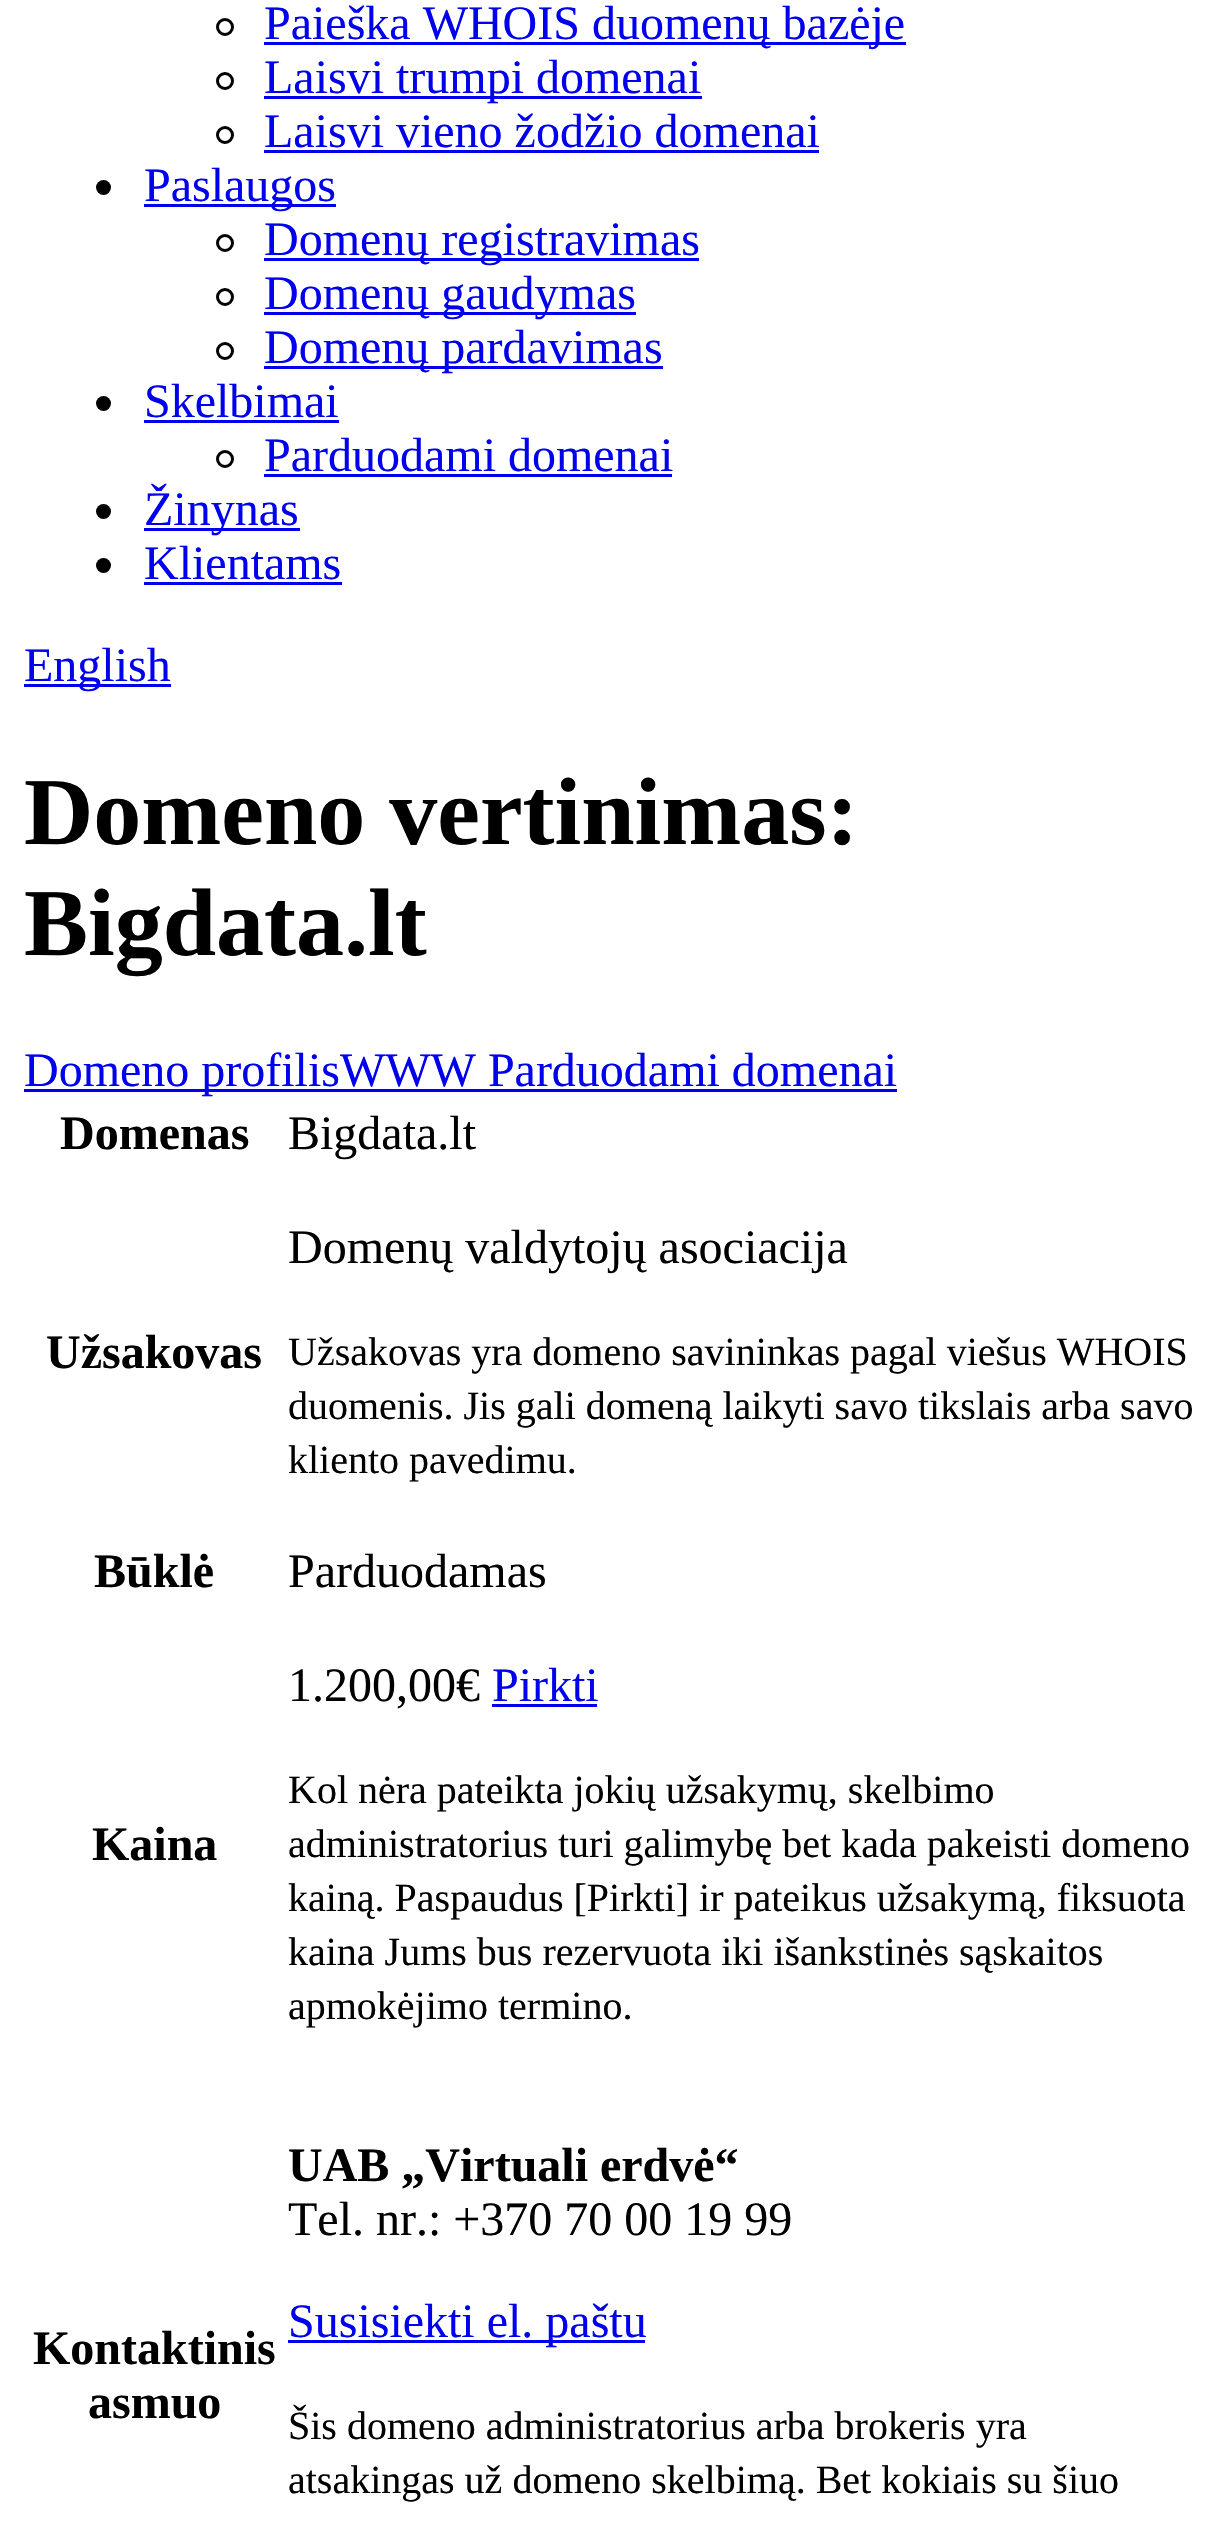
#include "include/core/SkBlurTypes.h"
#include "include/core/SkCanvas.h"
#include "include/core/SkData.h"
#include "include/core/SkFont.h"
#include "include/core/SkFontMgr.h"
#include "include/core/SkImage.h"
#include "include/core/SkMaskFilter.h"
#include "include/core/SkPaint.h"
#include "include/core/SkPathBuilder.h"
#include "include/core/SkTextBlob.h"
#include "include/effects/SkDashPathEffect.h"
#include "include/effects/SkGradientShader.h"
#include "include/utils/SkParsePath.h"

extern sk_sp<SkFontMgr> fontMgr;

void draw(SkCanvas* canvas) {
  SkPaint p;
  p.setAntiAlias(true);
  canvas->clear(SK_ColorWHITE);
  p.setStyle(SkPaint::kStroke_Style);
  p.setStrokeWidth(3);
  p.setColor(SK_ColorBLACK);
  canvas->drawCircle(225, 27, 7.5f, p);
  p.setStyle(SkPaint::kFill_Style);
  p.setColor(SkColorSetRGB(0, 0, 238));
  canvas->drawRect(SkRect::MakeLTRB(264, 42, 906, 45), p);
  p.setStyle(SkPaint::kStroke_Style);
  p.setColor(SK_ColorBLACK);
  canvas->drawCircle(225, 81, 7.5f, p);
  p.setStyle(SkPaint::kFill_Style);
  p.setColor(SkColorSetRGB(0, 0, 238));
  canvas->drawRect(SkRect::MakeLTRB(264, 96, 702, 99), p);
  p.setStyle(SkPaint::kStroke_Style);
  p.setColor(SK_ColorBLACK);
  canvas->drawCircle(225, 135, 7.5f, p);
  p.setStyle(SkPaint::kFill_Style);
  p.setColor(SkColorSetRGB(0, 0, 238));
  canvas->drawRect(SkRect::MakeLTRB(264, 150, 819, 153), p);
  p.setColor(SK_ColorBLACK);
  canvas->drawCircle(103.5f, 187.5f, 7.5f, p);
  p.setColor(SkColorSetRGB(0, 0, 238));
  canvas->drawRect(SkRect::MakeLTRB(144, 204, 336, 207), p);
  p.setStyle(SkPaint::kStroke_Style);
  p.setColor(SK_ColorBLACK);
  canvas->drawCircle(225, 243, 7.5f, p);
  p.setStyle(SkPaint::kFill_Style);
  p.setColor(SkColorSetRGB(0, 0, 238));
  canvas->drawRect(SkRect::MakeLTRB(264, 258, 699, 261), p);
  p.setStyle(SkPaint::kStroke_Style);
  p.setColor(SK_ColorBLACK);
  canvas->drawCircle(225, 297, 7.5f, p);
  p.setStyle(SkPaint::kFill_Style);
  p.setColor(SkColorSetRGB(0, 0, 238));
  canvas->drawRect(SkRect::MakeLTRB(264, 312, 636, 315), p);
  p.setStyle(SkPaint::kStroke_Style);
  p.setColor(SK_ColorBLACK);
  canvas->drawCircle(225, 351, 7.5f, p);
  p.setStyle(SkPaint::kFill_Style);
  p.setColor(SkColorSetRGB(0, 0, 238));
  canvas->drawRect(SkRect::MakeLTRB(264, 366, 663, 369), p);
  p.setColor(SK_ColorBLACK);
  canvas->drawCircle(103.5f, 403.5f, 7.5f, p);
  p.setColor(SkColorSetRGB(0, 0, 238));
  canvas->drawRect(SkRect::MakeLTRB(144, 420, 339, 423), p);
  p.setStyle(SkPaint::kStroke_Style);
  p.setColor(SK_ColorBLACK);
  canvas->drawCircle(225, 459, 7.5f, p);
  p.setStyle(SkPaint::kFill_Style);
  p.setColor(SkColorSetRGB(0, 0, 238));
  canvas->drawRect(SkRect::MakeLTRB(264, 474, 672, 477), p);
  p.setColor(SK_ColorBLACK);
  canvas->drawCircle(103.5f, 511.5f, 7.5f, p);
  p.setColor(SkColorSetRGB(0, 0, 238));
  canvas->drawRect(SkRect::MakeLTRB(144, 528, 300, 531), p);
  p.setColor(SK_ColorBLACK);
  canvas->drawCircle(103.5f, 565.5f, 7.5f, p);
  p.setColor(SkColorSetRGB(0, 0, 238));
  canvas->drawRect(SkRect::MakeLTRB(144, 582, 342, 585), p);
  canvas->drawRect(SkRect::MakeLTRB(24, 684, 171, 687), p);
  canvas->drawRect(SkRect::MakeLTRB(24, 1089, 897, 1092), p);
  canvas->drawRect(SkRect::MakeLTRB(492, 1704, 597, 1707), p);
  canvas->drawRect(SkRect::MakeLTRB(288, 2340, 645, 2343), p);
  SkFont font1(fontMgr->matchFamilyStyle("Liberation Serif", SkFontStyle::Normal()), 48);
  font1.setSubpixel(true);
  canvas->drawString("Paieška WHOIS duomenų bazėje", 264, 39, font1, p);
  canvas->drawString("Laisvi trumpi domenai", 264, 93, font1, p);
  canvas->drawString("Laisvi vieno žodžio domenai", 264, 147, font1, p);
  canvas->drawString("Paslaugos", 144, 201, font1, p);
  canvas->drawString("Domenų registravimas", 264, 255, font1, p);
  canvas->drawString("Domenų gaudymas", 264, 309, font1, p);
  canvas->drawString("Domenų pardavimas", 264, 363, font1, p);
  canvas->drawString("Skelbimai", 144, 417, font1, p);
  canvas->drawString("Parduodami domenai", 264, 471, font1, p);
  canvas->drawString("Žinynas", 144, 525, font1, p);
  canvas->drawString("Klientams", 144, 579, font1, p);
  canvas->drawString("English", 24, 681, font1, p);
  SkFont font2(fontMgr->matchFamilyStyle("Liberation Serif", SkFontStyle::Bold()), 96);
  font2.setSubpixel(true);
  p.setColor(SK_ColorBLACK);
  canvas->drawString("Domeno vertinimas:", 24, 844, font2, p);
  canvas->drawString("Bigdata.lt", 24, 955, font2, p);
  p.setColor(SkColorSetRGB(0, 0, 238));
  canvas->drawString("Domeno profilisWWW Parduodami domenai", 24, 1086, font1, p);
  SkFont font3(fontMgr->matchFamilyStyle("Liberation Serif", SkFontStyle::Bold()), 48);
  font3.setSubpixel(true);
  p.setColor(SK_ColorBLACK);
  canvas->drawString("Domenas", 60, 1149, font3, p);
  canvas->drawString("Bigdata.lt", 288, 1149, font1, p);
  canvas->drawString("Užsakovas", 46, 1368, font3, p);
  canvas->drawString("Domenų valdytojų asociacija", 288, 1263, font1, p);
  SkFont font4(fontMgr->matchFamilyStyle("Liberation Serif", SkFontStyle::Normal()), 40);
  font4.setSubpixel(true);
  canvas->drawString("Užsakovas yra domeno savininkas pagal viešus WHOIS", 288, 1365, font4, p);
  canvas->drawString("duomenis. Jis gali domeną laikyti savo tikslais arba savo", 288, 1419, font4, p);
  canvas->drawString("kliento pavedimu.", 288, 1473, font4, p);
  canvas->drawString("Būklė", 94, 1587, font3, p);
  canvas->drawString("Parduodamas", 288, 1587, font1, p);
  canvas->drawString("Kaina", 92, 1860, font3, p);
  canvas->drawString("1.200,00€", 288, 1701, font1, p);
  p.setColor(SkColorSetRGB(0, 0, 238));
  canvas->drawString("Pirkti", 492, 1701, font1, p);
  p.setColor(SK_ColorBLACK);
  canvas->drawString("Kol nėra pateikta jokių užsakymų, skelbimo", 288, 1803, font4, p);
  canvas->drawString("administratorius turi galimybę bet kada pakeisti domeno", 288, 1857, font4, p);
  canvas->drawString("kainą. Paspaudus [Pirkti] ir pateikus užsakymą, fiksuota", 288, 1911, font4, p);
  canvas->drawString("kaina Jums bus rezervuota iki išankstinės sąskaitos", 288, 1965, font4, p);
  canvas->drawString("apmokėjimo termino.", 288, 2019, font4, p);
  canvas->drawString("Kontaktinis", 33, 2364, font3, p);
  canvas->drawString("asmuo", 88, 2418, font3, p);
  canvas->drawString("UAB „Virtuali erdvė“", 288, 2181, font3, p);
  canvas->drawString("Tel. nr.: +370 70 00 19 99", 288, 2235, font1, p);
  p.setColor(SkColorSetRGB(0, 0, 238));
  canvas->drawString("Susisiekti el. paštu", 288, 2337, font1, p);
  p.setColor(SK_ColorBLACK);
  canvas->drawString("Šis domeno administratorius arba brokeris yra", 288, 2439, font4, p);
  canvas->drawString("atsakingas už domeno skelbimą. Bet kokiais su šiuo", 288, 2493, font4, p);
}
